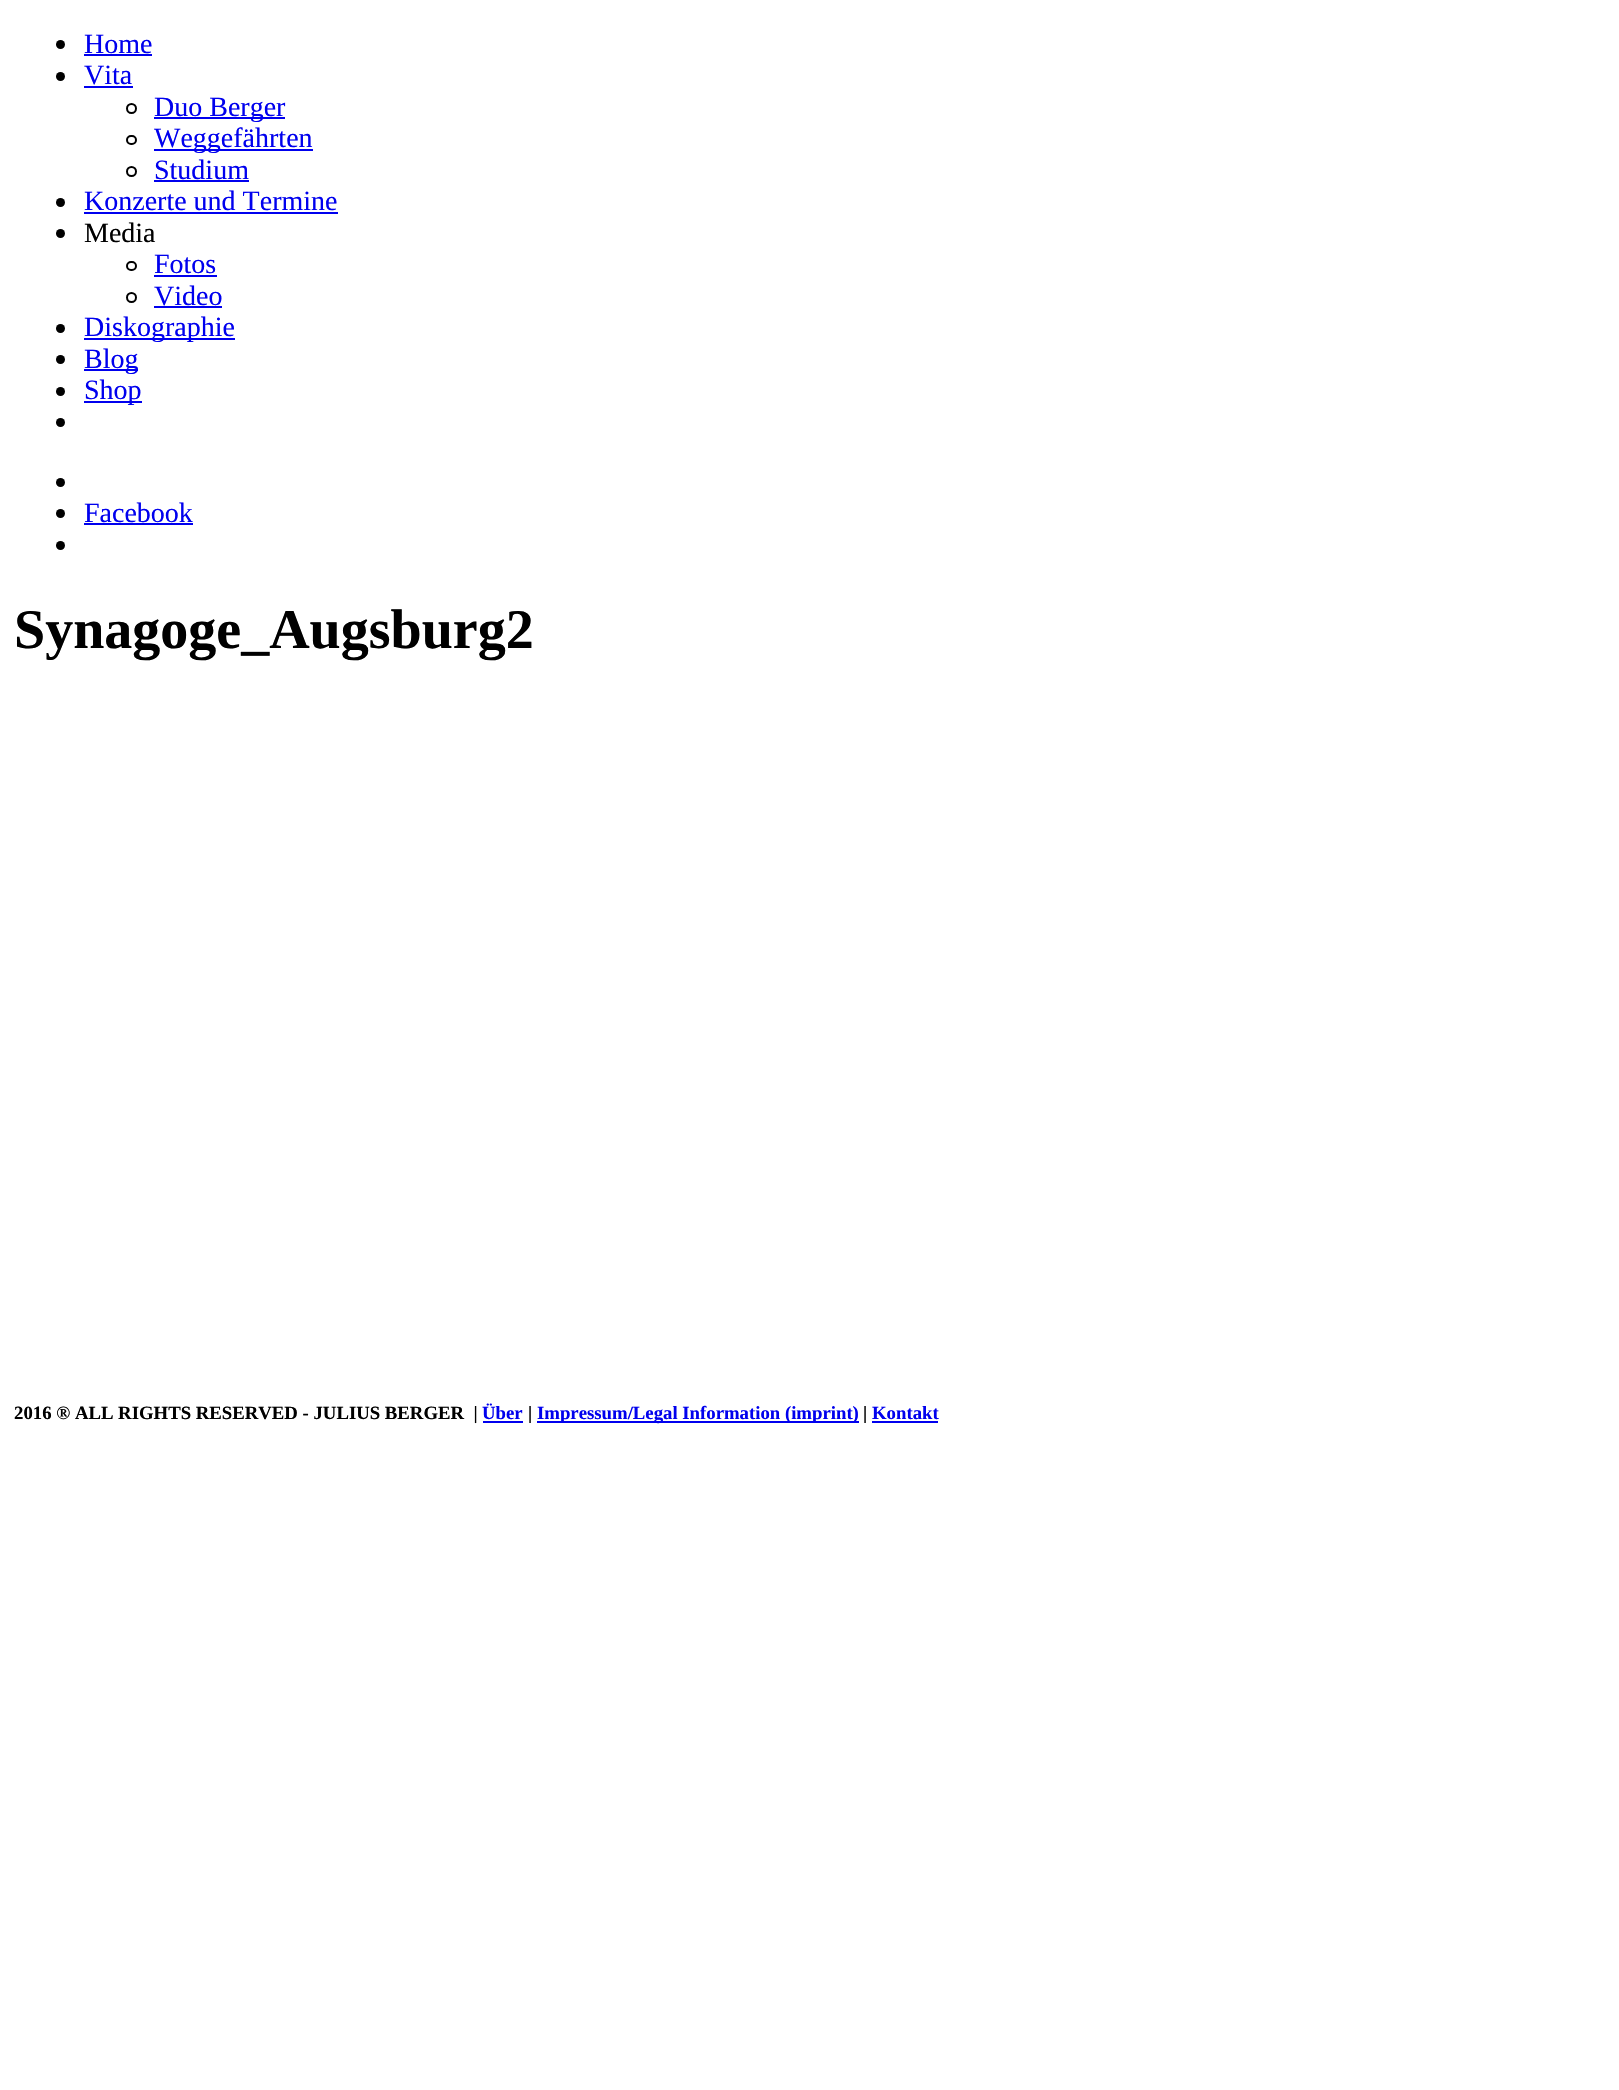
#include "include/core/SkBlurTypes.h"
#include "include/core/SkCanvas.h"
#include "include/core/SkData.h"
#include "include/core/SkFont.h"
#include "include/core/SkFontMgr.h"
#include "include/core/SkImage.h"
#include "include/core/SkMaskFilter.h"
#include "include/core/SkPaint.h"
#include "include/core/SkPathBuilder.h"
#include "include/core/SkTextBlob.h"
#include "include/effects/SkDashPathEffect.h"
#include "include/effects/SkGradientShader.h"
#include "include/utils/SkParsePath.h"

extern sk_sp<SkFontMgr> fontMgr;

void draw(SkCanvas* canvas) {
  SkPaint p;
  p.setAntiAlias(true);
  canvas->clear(SK_ColorWHITE);
  p.setColor(SK_ColorBLACK);
  canvas->drawCircle(60.5f, 44.5f, 4.5f, p);
  p.setColor(SkColorSetRGB(0, 0, 238));
  canvas->drawRect(SkRect::MakeLTRB(84, 54, 152, 56), p);
  p.setColor(SK_ColorBLACK);
  canvas->drawCircle(60.5f, 76.5f, 4.5f, p);
  p.setColor(SkColorSetRGB(0, 0, 238));
  canvas->drawRect(SkRect::MakeLTRB(84, 86, 133, 88), p);
  p.setStyle(SkPaint::kStroke_Style);
  p.setStrokeWidth(2);
  p.setColor(SK_ColorBLACK);
  canvas->drawCircle(131.5f, 108.5f, 4.5f, p);
  p.setStyle(SkPaint::kFill_Style);
  p.setColor(SkColorSetRGB(0, 0, 238));
  canvas->drawRect(SkRect::MakeLTRB(154, 117, 285, 119), p);
  p.setStyle(SkPaint::kStroke_Style);
  p.setColor(SK_ColorBLACK);
  canvas->drawRoundRect(SkRect::MakeLTRB(127, 136, 136, 144), 4, 4, p);
  p.setStyle(SkPaint::kFill_Style);
  p.setColor(SkColorSetRGB(0, 0, 238));
  canvas->drawRect(SkRect::MakeLTRB(154, 149, 313, 151), p);
  p.setStyle(SkPaint::kStroke_Style);
  p.setColor(SK_ColorBLACK);
  canvas->drawCircle(131.5f, 171.5f, 4.5f, p);
  p.setStyle(SkPaint::kFill_Style);
  p.setColor(SkColorSetRGB(0, 0, 238));
  canvas->drawRect(SkRect::MakeLTRB(154, 180, 249, 182), p);
  p.setColor(SK_ColorBLACK);
  canvas->drawCircle(60.5f, 202.5f, 4.5f, p);
  p.setColor(SkColorSetRGB(0, 0, 238));
  canvas->drawRect(SkRect::MakeLTRB(84, 212, 338, 214), p);
  p.setColor(SK_ColorBLACK);
  canvas->drawCircle(60.5f, 233.5f, 4.5f, p);
  p.setStyle(SkPaint::kStroke_Style);
  canvas->drawRoundRect(SkRect::MakeLTRB(127, 262, 136, 270), 4, 4, p);
  p.setStyle(SkPaint::kFill_Style);
  p.setColor(SkColorSetRGB(0, 0, 238));
  canvas->drawRect(SkRect::MakeLTRB(154, 275, 217, 277), p);
  p.setStyle(SkPaint::kStroke_Style);
  p.setColor(SK_ColorBLACK);
  canvas->drawCircle(131.5f, 297.5f, 4.5f, p);
  p.setStyle(SkPaint::kFill_Style);
  p.setColor(SkColorSetRGB(0, 0, 238));
  canvas->drawRect(SkRect::MakeLTRB(154, 306, 222, 308), p);
  p.setColor(SK_ColorBLACK);
  canvas->drawCircle(60.5f, 328.5f, 4.5f, p);
  p.setColor(SkColorSetRGB(0, 0, 238));
  canvas->drawRect(SkRect::MakeLTRB(84, 338, 235, 340), p);
  p.setColor(SK_ColorBLACK);
  canvas->drawCircle(60.5f, 359.5f, 4.5f, p);
  p.setColor(SkColorSetRGB(0, 0, 238));
  canvas->drawRect(SkRect::MakeLTRB(84, 369, 138, 371), p);
  p.setColor(SK_ColorBLACK);
  canvas->drawCircle(60.5f, 391.5f, 4.5f, p);
  p.setColor(SkColorSetRGB(0, 0, 238));
  canvas->drawRect(SkRect::MakeLTRB(84, 401, 142, 403), p);
  p.setColor(SK_ColorBLACK);
  canvas->drawCircle(60.5f, 422.5f, 4.5f, p);
  canvas->drawCircle(60.5f, 482.5f, 4.5f, p);
  canvas->drawCircle(60.5f, 513.5f, 4.5f, p);
  p.setColor(SkColorSetRGB(0, 0, 238));
  canvas->drawRect(SkRect::MakeLTRB(84, 523, 193, 525), p);
  p.setColor(SK_ColorBLACK);
  canvas->drawCircle(60.5f, 545.5f, 4.5f, p);
  p.setColor(SkColorSetRGB(0, 0, 238));
  canvas->drawRect(SkRect::MakeLTRB(483, 1421, 523, 1423), p);
  canvas->drawRect(SkRect::MakeLTRB(537, 1421, 859, 1423), p);
  canvas->drawRect(SkRect::MakeLTRB(872, 1421, 938, 1423), p);
  SkFont font1(fontMgr->matchFamilyStyle("Liberation Serif", SkFontStyle::Normal()), 28);
  font1.setSubpixel(true);
  canvas->drawString("Home", 84, 53, font1, p);
  canvas->drawString("Vita", 84, 84, font1, p);
  canvas->drawString("Duo Berger", 154, 116, font1, p);
  canvas->drawString("Weggefährten", 154, 147, font1, p);
  canvas->drawString("Studium", 154, 179, font1, p);
  canvas->drawString("Konzerte und Termine", 84, 210, font1, p);
  p.setColor(SK_ColorBLACK);
  canvas->drawString("Media", 84, 242, font1, p);
  p.setColor(SkColorSetRGB(0, 0, 238));
  canvas->drawString("Fotos", 154, 273, font1, p);
  canvas->drawString("Video", 154, 305, font1, p);
  canvas->drawString("Diskographie", 84, 336, font1, p);
  canvas->drawString("Blog", 84, 368, font1, p);
  canvas->drawString("Shop", 84, 399, font1, p);
  canvas->drawString("Facebook", 84, 522, font1, p);
  SkFont font2(fontMgr->matchFamilyStyle("Liberation Serif", SkFontStyle::Bold()), 56);
  font2.setSubpixel(true);
  p.setColor(SK_ColorBLACK);
  canvas->drawString("Synagoge_Augsburg2", 14, 648, font2, p);
  SkFont font3(fontMgr->matchFamilyStyle("Liberation Serif", SkFontStyle::Bold()), 18.75f);
  font3.setSubpixel(true);
  canvas->drawString("2016 ® ALL RIGHTS RESERVED - JULIUS BERGER  |", 14, 1419, font3, p);
  p.setColor(SkColorSetRGB(0, 0, 238));
  canvas->drawString("Über", 482, 1419, font3, p);
  p.setColor(SK_ColorBLACK);
  canvas->drawString("|", 528, 1419, font3, p);
  p.setColor(SkColorSetRGB(0, 0, 238));
  canvas->drawString("Impressum/Legal Information (imprint)", 537, 1419, font3, p);
  p.setColor(SK_ColorBLACK);
  canvas->drawString("|", 863, 1419, font3, p);
  p.setColor(SkColorSetRGB(0, 0, 238));
  canvas->drawString("Kontakt", 872, 1419, font3, p);
}
